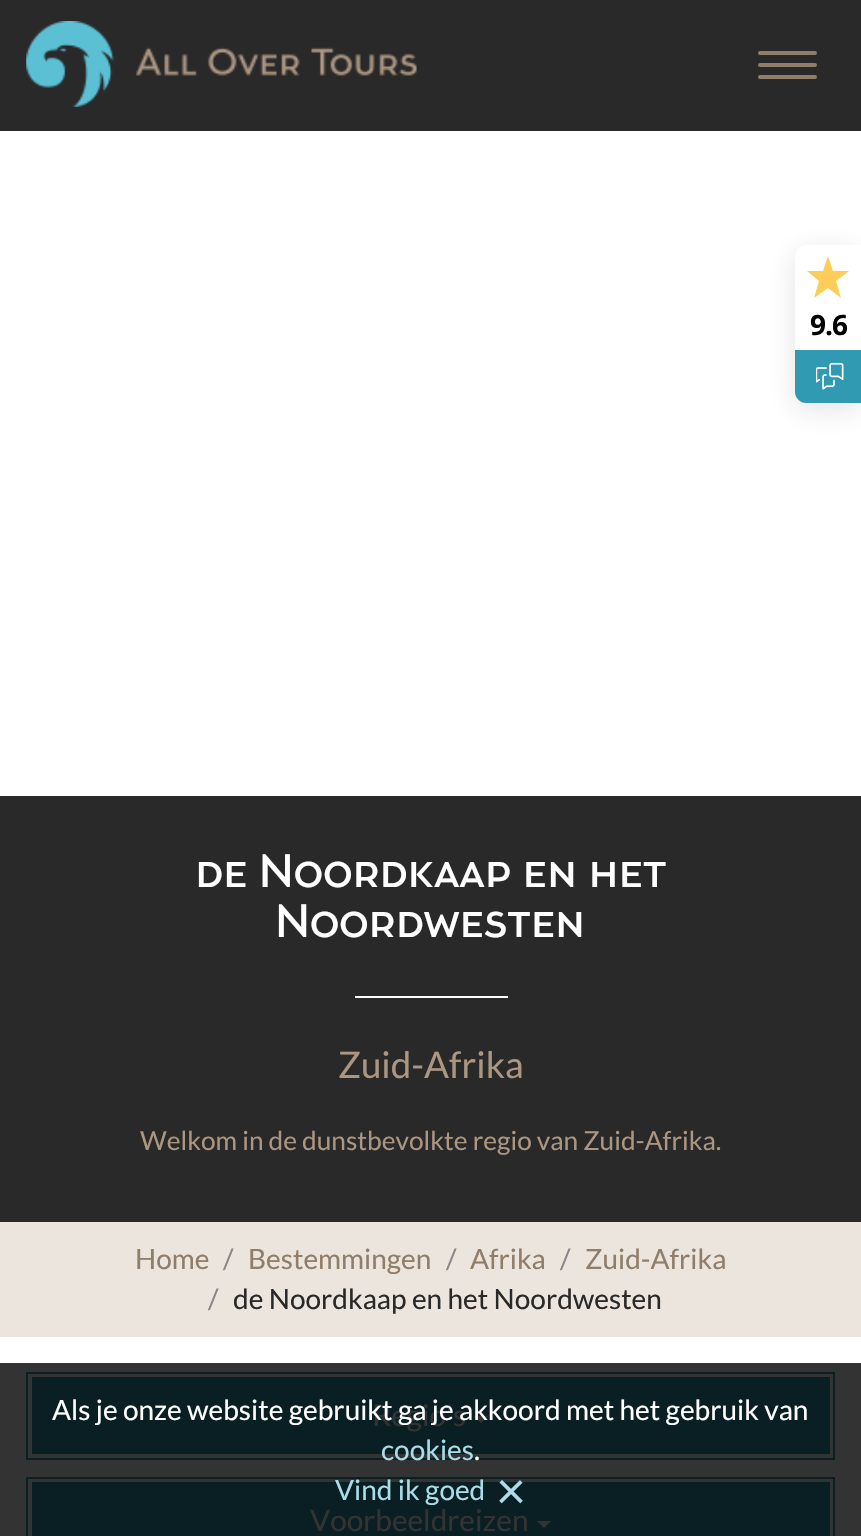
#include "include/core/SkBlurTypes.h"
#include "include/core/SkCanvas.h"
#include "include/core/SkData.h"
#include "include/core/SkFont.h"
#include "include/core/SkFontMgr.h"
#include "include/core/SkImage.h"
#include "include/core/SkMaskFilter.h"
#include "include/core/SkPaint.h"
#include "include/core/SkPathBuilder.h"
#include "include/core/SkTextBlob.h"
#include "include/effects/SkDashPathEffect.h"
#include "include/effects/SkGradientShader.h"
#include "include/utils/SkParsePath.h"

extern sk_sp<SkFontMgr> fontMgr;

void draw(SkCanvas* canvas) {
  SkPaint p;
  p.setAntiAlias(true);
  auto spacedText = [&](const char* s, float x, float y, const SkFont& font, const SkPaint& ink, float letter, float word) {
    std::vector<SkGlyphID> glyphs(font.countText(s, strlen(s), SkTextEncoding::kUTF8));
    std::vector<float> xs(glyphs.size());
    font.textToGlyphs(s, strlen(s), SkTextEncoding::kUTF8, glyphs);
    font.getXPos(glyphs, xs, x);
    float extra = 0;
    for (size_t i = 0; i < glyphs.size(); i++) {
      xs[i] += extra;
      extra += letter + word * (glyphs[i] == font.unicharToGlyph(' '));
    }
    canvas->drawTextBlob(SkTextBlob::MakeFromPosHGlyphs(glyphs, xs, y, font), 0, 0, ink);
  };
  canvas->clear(SK_ColorWHITE);
  p.setColor(SkColorSetRGB(51, 51, 51));
  canvas->drawRect(SkRect::MakeLTRB(0, 1363, 861, 1536), p);
  p.setColor(SkColorSetRGB(41, 41, 41));
  canvas->drawRect(SkRect::MakeLTRB(0, 0, 861, 131), p);
  canvas->drawImageRect(SkImages::DeferredFromEncodedData(SkData::MakeFromFileName("images/1.png")), SkRect::MakeLTRB(26, 21, 417, 107), SkSamplingOptions());
  p.setColor(SkColorSetRGB(144, 125, 106));
  canvas->drawRoundRect(SkRect::MakeLTRB(758, 51, 817, 55), 2, 2, p);
  canvas->drawRoundRect(SkRect::MakeLTRB(758, 63, 817, 67), 2, 2, p);
  canvas->drawRoundRect(SkRect::MakeLTRB(758, 75, 817, 79), 2, 2, p);
  p.setColor(SkColorSetARGB(31, 30, 30, 30));
  p.setMaskFilter(SkMaskFilter::MakeBlur(kNormal_SkBlurStyle, 14));
  canvas->drawRoundRect(SkRect::MakeLTRB(795, 252, 861, 410), 11, 11, p);
  p.setMaskFilter(nullptr);
  p.setColor(SK_ColorWHITE);
  canvas->drawPath(SkPathBuilder().moveTo(806, 245).lineTo(861, 245).lineTo(861, 403).lineTo(806, 403).cubicTo(800, 403, 795, 398, 795, 392).lineTo(795, 256).cubicTo(795, 250, 800, 245, 806, 245).close().detach(), p);
  p.setColor(SkColorSetRGB(254, 205, 88));
  canvas->drawPath(SkPathBuilder().moveTo(841, 298).lineTo(836, 281).lineTo(849, 271).lineTo(833, 271).lineTo(828, 256).lineTo(823, 271).lineTo(807, 271).lineTo(819, 281).lineTo(814, 298).lineTo(828, 288).close().detach(), p);
  p.setColor(SkColorSetRGB(47, 154, 177));
  canvas->drawPath(SkPathBuilder().moveTo(795, 350).lineTo(861, 350).lineTo(861, 403).lineTo(806, 403).cubicTo(800, 403, 795, 398, 795, 392).close().detach(), p);
  canvas->drawImageRect(SkImages::DeferredFromEncodedData(SkData::MakeFromFileName("images/2.png")), SkRect::MakeLTRB(816, 362, 844, 390), SkSamplingOptions());
  p.setColor(SkColorSetRGB(41, 41, 41));
  canvas->drawRect(SkRect::MakeLTRB(0, 796, 861, 1222), p);
  p.setColor(SK_ColorWHITE);
  canvas->drawRect(SkRect::MakeLTRB(355, 996, 508, 998), p);
  p.setColor(SkColorSetRGB(236, 229, 221));
  canvas->drawRect(SkRect::MakeLTRB(0, 1222, 861, 1337), p);
  p.setStyle(SkPaint::kStroke_Style);
  p.setStrokeWidth(2);
  p.setColor(SkColorSetRGB(9, 31, 35));
  canvas->drawRect(SkRect::MakeLTRB(27, 1373, 834, 1459), p);
  p.setStyle(SkPaint::kFill_Style);
  canvas->drawRect(SkRect::MakeLTRB(32, 1377, 830, 1454), p);
  p.setColor(SkColorSetRGB(51, 51, 51));
  canvas->drawPath(SkPathBuilder().moveTo(474, 1416).lineTo(488, 1416).lineTo(481, 1423).close().detach(), p);
  p.setStyle(SkPaint::kStroke_Style);
  p.setColor(SkColorSetRGB(9, 31, 35));
  canvas->drawRect(SkRect::MakeLTRB(27, 1478, 834, 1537), p);
  p.setStyle(SkPaint::kFill_Style);
  canvas->drawRect(SkRect::MakeLTRB(32, 1482, 830, 1536), p);
  p.setColor(SkColorSetRGB(51, 51, 51));
  canvas->drawPath(SkPathBuilder().moveTo(537, 1521).lineTo(551, 1521).lineTo(544, 1528).close().detach(), p);
  SkFont font1(fontMgr->matchFamilyStyle("Open Sans", SkFontStyle::Bold()), 28);
  font1.setSubpixel(true);
  p.setColor(SK_ColorBLACK);
  spacedText("9.6", 810, 335, font1, p, -1, 0);
  SkFont font2(fontMgr->matchFamilyStyle("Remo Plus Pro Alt", SkFontStyle(500, SkFontStyle::kNormal_Width, SkFontStyle::kUpright_Slant)), 45.5f);
  font2.setSubpixel(true);
  p.setColor(SK_ColorWHITE);
  canvas->drawString("de Noordkaap en het", 195, 887, font2, p);
  canvas->drawString("Noordwesten", 275, 937, font2, p);
  SkFont font3(fontMgr->matchFamilyStyle("Lato", SkFontStyle::Normal()), 36.75f);
  font3.setSubpixel(true);
  p.setColor(SkColorSetRGB(171, 150, 129));
  canvas->drawString("Zuid-Afrika", 338, 1078, font3, p);
  SkFont font4(fontMgr->matchFamilyStyle("Lato", SkFontStyle::Normal()), 26.25f);
  font4.setSubpixel(true);
  canvas->drawString("Welkom in de dunstbevolkte regio van Zuid-Afrika.", 140, 1150, font4, p);
  SkFont font5(fontMgr->matchFamilyStyle("Lato", SkFontStyle::Normal()), 28);
  font5.setSubpixel(true);
  p.setColor(SkColorSetRGB(144, 125, 106));
  canvas->drawString("Home", 135, 1269, font5, p);
  p.setColor(SkColorSetRGB(136, 136, 136));
  canvas->drawString("/", 223, 1269, font5, p);
  p.setColor(SkColorSetRGB(144, 125, 106));
  canvas->drawString("Bestemmingen", 248, 1269, font5, p);
  p.setColor(SkColorSetRGB(136, 136, 136));
  canvas->drawString("/", 446, 1269, font5, p);
  p.setColor(SkColorSetRGB(144, 125, 106));
  canvas->drawString("Afrika", 470, 1269, font5, p);
  p.setColor(SkColorSetRGB(136, 136, 136));
  canvas->drawString("/", 560, 1269, font5, p);
  p.setColor(SkColorSetRGB(144, 125, 106));
  canvas->drawString("Zuid-Afrika", 585, 1269, font5, p);
  p.setColor(SkColorSetRGB(136, 136, 136));
  canvas->drawString("/", 208, 1309, font5, p);
  p.setColor(SkColorSetRGB(41, 41, 41));
  canvas->drawString("de Noordkaap en het Noordwesten", 233, 1309, font5, p);
  p.setColor(SkColorSetRGB(170, 221, 232));
  canvas->drawString("cookies", 381, 1460, font5, p);
  p.setColor(SK_ColorWHITE);
  canvas->drawString(".", 474, 1460, font5, p);
  p.setColor(SkColorSetRGB(170, 221, 232));
  canvas->drawString("Vind ik goed", 335, 1500, font5, p);
  SkFont font6(fontMgr->matchFamilyStyle("Lato", SkFontStyle::Normal()), 52);
  font6.setSubpixel(true);
  canvas->drawString("×", 496, 1509, font6, p);
  SkFont font7(fontMgr->matchFamilyStyle("Lato", SkFontStyle::Normal()), 29.75f);
  font7.setSubpixel(true);
  p.setColor(SkColorSetRGB(51, 51, 51));
  canvas->drawString("Regio's", 372, 1426, font7, p);
  p.setColor(SK_ColorWHITE);
  canvas->drawString("Als je onze website gebruikt ga je akkoord met het gebruik van", 52, 1420, font5, p);
  p.setColor(SkColorSetRGB(51, 51, 51));
  canvas->drawString("Voorbeeldreizen", 310, 1531, font7, p);
}
